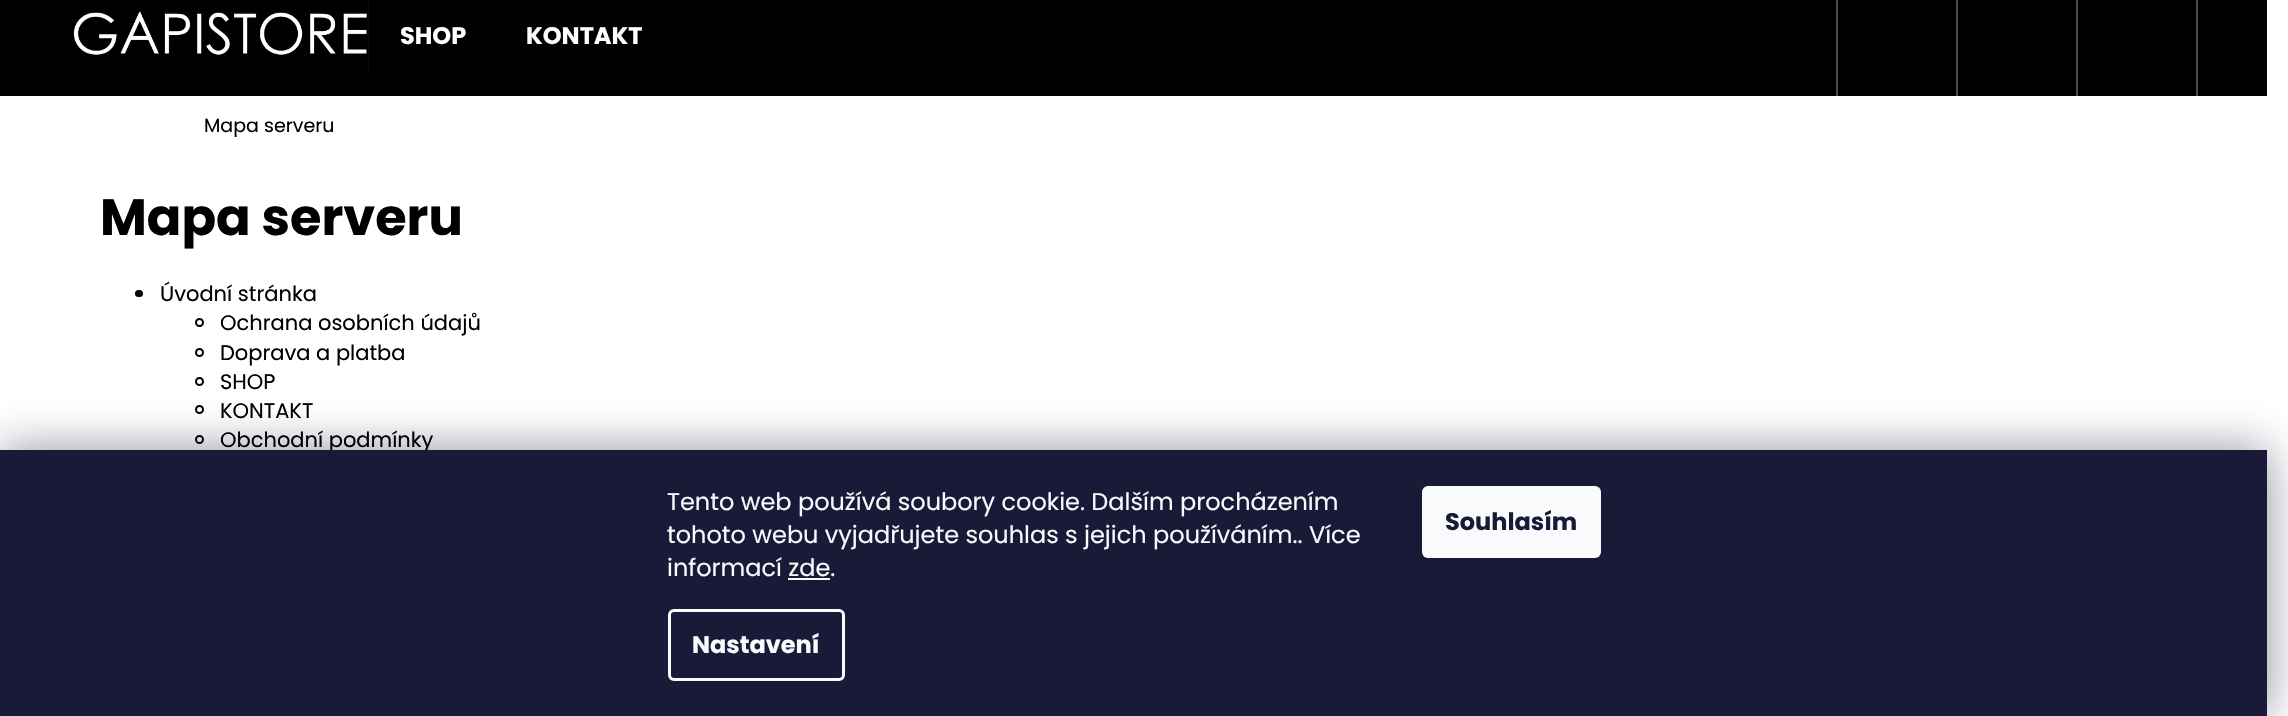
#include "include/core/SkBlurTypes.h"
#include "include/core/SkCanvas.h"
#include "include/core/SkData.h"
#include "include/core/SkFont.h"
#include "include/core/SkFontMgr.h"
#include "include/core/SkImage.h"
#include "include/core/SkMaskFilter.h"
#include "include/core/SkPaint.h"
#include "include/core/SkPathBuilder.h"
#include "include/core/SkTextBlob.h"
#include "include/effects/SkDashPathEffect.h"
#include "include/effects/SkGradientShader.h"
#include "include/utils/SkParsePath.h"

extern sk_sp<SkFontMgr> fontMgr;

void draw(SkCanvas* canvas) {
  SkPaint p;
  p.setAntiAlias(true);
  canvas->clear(SK_ColorWHITE);
  p.setColor(SK_ColorBLACK);
  canvas->drawRect(SkRect::MakeLTRB(0, 0, 2267, 96), p);
  canvas->drawImageRect(SkImages::DeferredFromEncodedData(SkData::MakeFromFileName("images/1.png")), SkRect::MakeLTRB(73, 0, 369, 75), SkSamplingOptions());
  p.setColor(SkColorSetRGB(77, 77, 77));
  canvas->drawRect(SkRect::MakeLTRB(2196, 0, 2198, 96), p);
  canvas->drawRect(SkRect::MakeLTRB(1836, 0, 1838, 96), p);
  canvas->drawRect(SkRect::MakeLTRB(1956, 0, 1958, 96), p);
  canvas->drawRect(SkRect::MakeLTRB(2076, 0, 2078, 96), p);
  p.setColor(SK_ColorBLACK);
  canvas->drawRoundRect(SkRect::MakeLTRB(135, 290, 143, 297), 3.5f, 3.5f, p);
  p.setStyle(SkPaint::kStroke_Style);
  p.setStrokeWidth(2);
  canvas->drawCircle(199.5f, 322.5f, 3.5f, p);
  canvas->drawCircle(199.5f, 352.5f, 3.5f, p);
  canvas->drawCircle(199.5f, 381.5f, 3.5f, p);
  canvas->drawCircle(199.5f, 409.5f, 3.5f, p);
  canvas->drawCircle(199.5f, 439.5f, 3.5f, p);
  p.setStyle(SkPaint::kFill_Style);
  p.setColor(SkColorSetARGB(128, 27, 25, 57));
  p.setMaskFilter(SkMaskFilter::MakeBlur(kNormal_SkBlurStyle, 22.5f));
  canvas->drawRect(SkRect::MakeLTRB(0, 450, 2267, 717), p);
  p.setMaskFilter(nullptr);
  SkFont font1(fontMgr->matchFamilyStyle("Poppins", SkFontStyle::Bold()), 24);
  font1.setSubpixel(true);
  p.setColor(SK_ColorWHITE);
  canvas->drawString("SHOP", 400, 44, font1, p);
  canvas->drawString("KONTAKT", 526, 44, font1, p);
  SkFont font2(fontMgr->matchFamilyStyle("Poppins", SkFontStyle::Normal()), 19);
  font2.setSubpixel(true);
  p.setColor(SK_ColorBLACK);
  canvas->drawString("Mapa serveru", 204, 132, font2, p);
  SkFont font3(fontMgr->matchFamilyStyle("Poppins", SkFontStyle::Bold()), 51);
  font3.setSubpixel(true);
  canvas->drawString("Mapa serveru", 100, 235, font3, p);
  SkFont font4(fontMgr->matchFamilyStyle("Poppins", SkFontStyle::Normal()), 21);
  font4.setSubpixel(true);
  canvas->drawString("Úvodní stránka", 160, 301, font4, p);
  canvas->drawString("Ochrana osobních údajů", 220, 330, font4, p);
  canvas->drawString("Doprava a platba", 220, 360, font4, p);
  canvas->drawString("SHOP", 220, 389, font4, p);
  canvas->drawString("KONTAKT", 220, 418, font4, p);
  canvas->drawString("Obchodní podmínky", 220, 447, font4, p);
  p.setColor(SkColorSetRGB(26, 25, 55));
  canvas->drawRect(SkRect::MakeLTRB(0, 450, 2267, 716), p);
  SkFont font5(fontMgr->matchFamilyStyle("Poppins", SkFontStyle::Normal()), 24);
  font5.setSubpixel(true);
  p.setColor(SkColorSetRGB(248, 250, 251));
  canvas->drawString("Tento web používá soubory cookie. Dalším procházením", 667, 510, font5, p);
  canvas->drawString("tohoto webu vyjadřujete souhlas s jejich používáním.. Více", 667, 543, font5, p);
  canvas->drawString("informací zde.", 667, 576, font5, p);
  canvas->drawRect(SkRect::MakeLTRB(788, 578, 830, 580), p);
  p.setStyle(SkPaint::kStroke_Style);
  p.setStrokeWidth(3);
  canvas->drawRoundRect(SkRect::MakeLTRB(669.5f, 610.5f, 843.5f, 679.5f), 4.5f, 4.5f, p);
  p.setStyle(SkPaint::kFill_Style);
  canvas->drawString("Nastavení", 692, 653, font1, p);
  canvas->drawRoundRect(SkRect::MakeLTRB(1422, 486, 1601, 558), 6, 6, p);
  p.setColor(SkColorSetRGB(26, 25, 55));
  canvas->drawString("Souhlasím", 1445, 530, font1, p);
}
